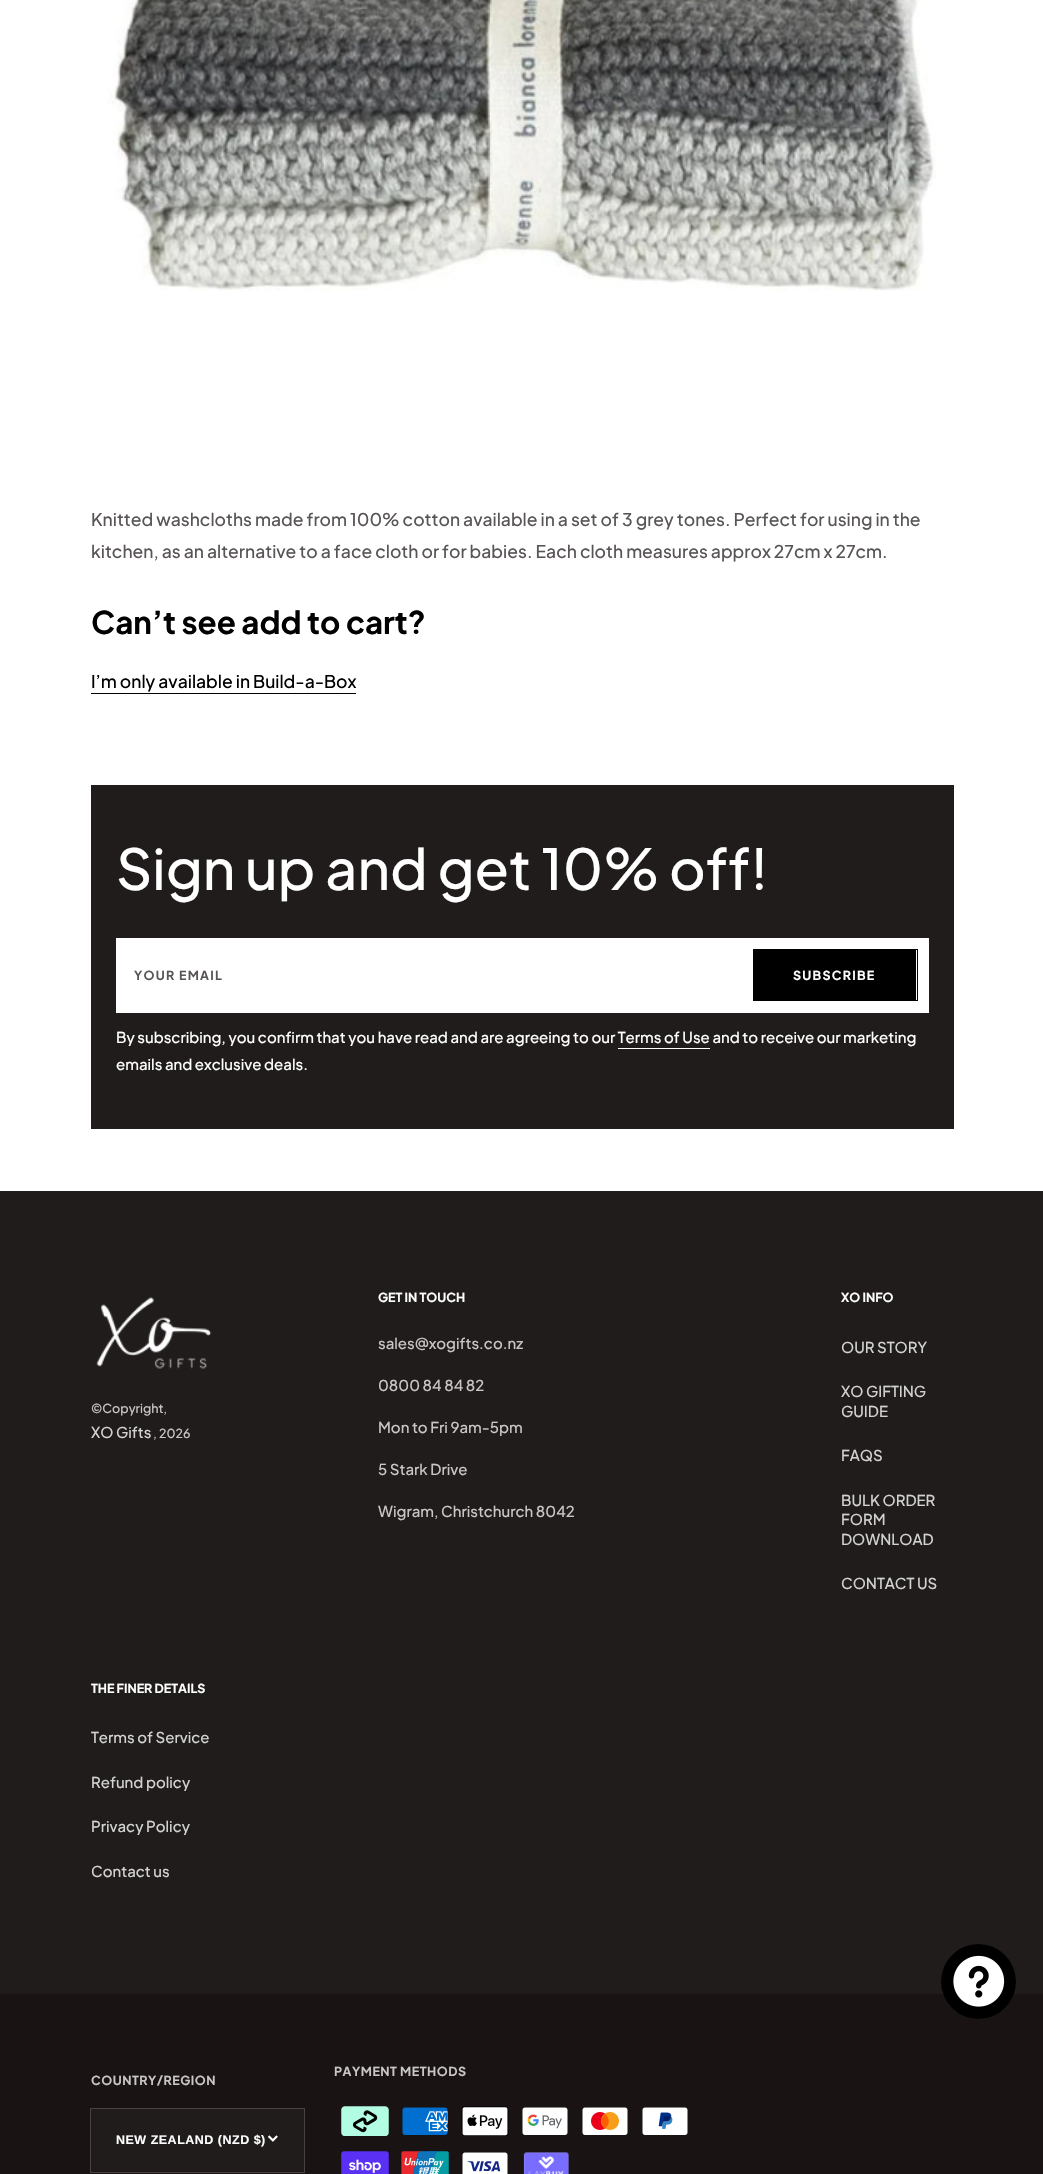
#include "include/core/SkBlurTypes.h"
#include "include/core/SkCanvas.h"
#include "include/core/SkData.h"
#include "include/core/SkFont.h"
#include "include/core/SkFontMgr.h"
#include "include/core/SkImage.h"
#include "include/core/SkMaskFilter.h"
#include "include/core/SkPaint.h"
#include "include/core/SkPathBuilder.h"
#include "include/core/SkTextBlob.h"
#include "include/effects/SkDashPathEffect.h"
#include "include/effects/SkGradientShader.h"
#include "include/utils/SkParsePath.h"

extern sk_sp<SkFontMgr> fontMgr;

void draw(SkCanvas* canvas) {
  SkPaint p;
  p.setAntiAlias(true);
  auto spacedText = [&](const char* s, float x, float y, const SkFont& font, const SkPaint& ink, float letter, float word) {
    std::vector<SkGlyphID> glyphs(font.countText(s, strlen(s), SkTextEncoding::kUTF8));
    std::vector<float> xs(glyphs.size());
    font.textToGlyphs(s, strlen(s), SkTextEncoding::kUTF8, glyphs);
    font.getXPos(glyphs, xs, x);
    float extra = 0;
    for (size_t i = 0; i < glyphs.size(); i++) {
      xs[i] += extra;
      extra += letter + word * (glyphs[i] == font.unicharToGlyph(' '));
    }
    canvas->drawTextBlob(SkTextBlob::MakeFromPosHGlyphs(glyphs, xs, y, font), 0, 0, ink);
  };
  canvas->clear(SK_ColorWHITE);
  canvas->drawImageRect(SkImages::DeferredFromEncodedData(SkData::MakeFromFileName("images/1.png")), SkRect::MakeLTRB(107, 0, 936, 291), SkSamplingOptions());
  p.setColor(SK_ColorBLACK);
  canvas->drawRect(SkRect::MakeLTRB(91, 693, 356, 694), p);
  p.setColor(SkColorSetRGB(33, 28, 28));
  canvas->drawRect(SkRect::MakeLTRB(91, 785, 954, 1129), p);
  p.setColor(SK_ColorWHITE);
  canvas->drawRect(SkRect::MakeLTRB(116, 938, 929, 1013), p);
  p.setStyle(SkPaint::kStroke_Style);
  p.setStrokeWidth(1);
  p.setColor(SK_ColorBLACK);
  canvas->drawRect(SkRect::MakeLTRB(753.5f, 949.5f, 917.5f, 1000.5f), p);
  p.setStyle(SkPaint::kFill_Style);
  canvas->drawRect(SkRect::MakeLTRB(754, 950, 916, 1000), p);
  p.setColor(SK_ColorWHITE);
  canvas->drawRect(SkRect::MakeLTRB(618, 1048, 710, 1049), p);
  p.setColor(SkColorSetRGB(33, 28, 28));
  canvas->drawRect(SkRect::MakeLTRB(0, 1191, 1043, 1994), p);
  canvas->drawImageRect(SkImages::DeferredFromEncodedData(SkData::MakeFromFileName("images/2.png")), SkRect::MakeLTRB(96, 1297, 212, 1369), SkSamplingOptions());
  p.setColor(SkColorSetRGB(26, 19, 19));
  canvas->drawRect(SkRect::MakeLTRB(0, 1994, 1043, 2174), p);
  canvas->drawImageRect(SkImages::DeferredFromEncodedData(SkData::MakeFromFileName("images/3.png")), SkRect::MakeLTRB(341, 2106, 389, 2136), SkSamplingOptions());
  canvas->drawImageRect(SkImages::DeferredFromEncodedData(SkData::MakeFromFileName("images/4.png")), SkRect::MakeLTRB(402, 2107, 448, 2135), SkSamplingOptions());
  canvas->drawImageRect(SkImages::DeferredFromEncodedData(SkData::MakeFromFileName("images/5.png")), SkRect::MakeLTRB(461, 2106, 509, 2136), SkSamplingOptions());
  canvas->drawImageRect(SkImages::DeferredFromEncodedData(SkData::MakeFromFileName("images/6.png")), SkRect::MakeLTRB(522, 2107, 568, 2135), SkSamplingOptions());
  canvas->drawImageRect(SkImages::DeferredFromEncodedData(SkData::MakeFromFileName("images/7.png")), SkRect::MakeLTRB(582, 2107, 628, 2135), SkSamplingOptions());
  canvas->drawImageRect(SkImages::DeferredFromEncodedData(SkData::MakeFromFileName("images/8.png")), SkRect::MakeLTRB(642, 2107, 688, 2135), SkSamplingOptions());
  canvas->drawImageRect(SkImages::DeferredFromEncodedData(SkData::MakeFromFileName("images/9.png")), SkRect::MakeLTRB(341, 2151, 389, 2174), SkSamplingOptions());
  canvas->drawImageRect(SkImages::DeferredFromEncodedData(SkData::MakeFromFileName("images/10.png")), SkRect::MakeLTRB(401, 2151, 449, 2174), SkSamplingOptions());
  canvas->drawImageRect(SkImages::DeferredFromEncodedData(SkData::MakeFromFileName("images/11.png")), SkRect::MakeLTRB(462, 2152, 508, 2174), SkSamplingOptions());
  canvas->drawImageRect(SkImages::DeferredFromEncodedData(SkData::MakeFromFileName("images/12.png")), SkRect::MakeLTRB(523, 2152, 569, 2174), SkSamplingOptions());
  p.setStyle(SkPaint::kStroke_Style);
  p.setColor(SkColorSetRGB(72, 66, 66));
  canvas->drawRect(SkRect::MakeLTRB(90.5f, 2108.5f, 304.5f, 2172.5f), p);
  p.setStyle(SkPaint::kFill_Style);
  p.setColor(SkColorSetRGB(33, 28, 28));
  canvas->drawRect(SkRect::MakeLTRB(91, 2109, 304, 2171), p);
  canvas->drawImageRect(SkImages::DeferredFromEncodedData(SkData::MakeFromFileName("images/13.png")), SkRect::MakeLTRB(268, 2135, 278, 2142), SkSamplingOptions());
  p.setColor(SK_ColorBLACK);
  canvas->drawCircle(978.5f, 1981.5f, 37.5f, p);
  canvas->drawImageRect(SkImages::DeferredFromEncodedData(SkData::MakeFromFileName("images/14.png")), SkRect::MakeLTRB(953, 1955, 1005, 2007), SkSamplingOptions());
  SkFont font1(fontMgr->matchFamilyStyle("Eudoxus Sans", SkFontStyle(500, SkFontStyle::kNormal_Width, SkFontStyle::kUpright_Slant)), 17.5f);
  font1.setSubpixel(true);
  p.setColor(SkColorSetRGB(89, 85, 85));
  canvas->drawString("Knitted washcloths made from 100% cotton available in a set of 3 grey tones. Perfect for using in the", 91, 526, font1, p);
  canvas->drawString("kitchen, as an alternative to a face cloth or for babies. Each cloth measures approx 27cm x 27cm.", 91, 558, font1, p);
  SkFont font2(fontMgr->matchFamilyStyle("Eudoxus Sans", SkFontStyle::Bold()), 31.25f);
  font2.setSubpixel(true);
  p.setColor(SK_ColorBLACK);
  canvas->drawString("Can’t see add to cart?", 91, 634, font2, p);
  canvas->drawString("I’m only available in Build-a-Box", 91, 688, font1, p);
  SkFont font3(fontMgr->matchFamilyStyle("Eudoxus Sans", SkFontStyle(500, SkFontStyle::kNormal_Width, SkFontStyle::kUpright_Slant)), 56.25f);
  font3.setSubpixel(true);
  p.setColor(SK_ColorWHITE);
  canvas->drawString("Sign up and get 10% off!", 116, 890, font3, p);
  SkFont font4(fontMgr->matchFamilyStyle("Eudoxus Sans", SkFontStyle::Bold()), 12.5f);
  font4.setSubpixel(true);
  p.setColor(SkColorSetRGB(89, 85, 85));
  spacedText("YOUR EMAIL", 134, 980, font4, p, 1.25f, 0);
  p.setColor(SK_ColorWHITE);
  spacedText("SUBSCRIBE", 793, 980, font4, p, 1.25f, 0);
  SkFont font5(fontMgr->matchFamilyStyle("Eudoxus Sans", SkFontStyle(500, SkFontStyle::kNormal_Width, SkFontStyle::kUpright_Slant)), 15);
  font5.setSubpixel(true);
  canvas->drawString("By subscribing, you confirm that you have read and are agreeing to our Terms of Use and to receive our marketing", 116, 1043, font5, p);
  canvas->drawString("emails and exclusive deals.", 116, 1070, font5, p);
  SkFont font6(fontMgr->matchFamilyStyle("Eudoxus Sans", SkFontStyle(500, SkFontStyle::kNormal_Width, SkFontStyle::kUpright_Slant)), 12.5f);
  font6.setSubpixel(true);
  p.setColor(SkColorSetRGB(200, 198, 198));
  canvas->drawString("©Copyright,", 91, 1413, font6, p);
  p.setColor(SkColorSetRGB(211, 210, 210));
  canvas->drawString("XO Gifts", 91, 1438, font5, p);
  p.setColor(SkColorSetRGB(200, 198, 198));
  canvas->drawString(", 2026", 153, 1438, font6, p);
  p.setColor(SK_ColorWHITE);
  canvas->drawString("GET IN TOUCH", 378, 1302, font4, p);
  p.setColor(SkColorSetRGB(200, 198, 198));
  canvas->drawString("sales@xogifts.co.nz", 378, 1349, font5, p);
  canvas->drawString("0800 84 84 82", 378, 1391, font5, p);
  canvas->drawString("Mon to Fri 9am-5pm", 378, 1433, font5, p);
  canvas->drawString("5 Stark Drive", 378, 1475, font5, p);
  canvas->drawString("Wigram, Christchurch 8042", 378, 1517, font5, p);
  p.setColor(SK_ColorWHITE);
  canvas->drawString("XO INFO", 841, 1302, font4, p);
  p.setColor(SkColorSetRGB(211, 210, 210));
  canvas->drawString("OUR STORY", 841, 1353, font5, p);
  canvas->drawString("XO GIFTING", 841, 1397, font5, p);
  canvas->drawString("GUIDE", 841, 1417, font5, p);
  canvas->drawString("FAQS", 841, 1461, font5, p);
  canvas->drawString("BULK ORDER", 841, 1506, font5, p);
  canvas->drawString("FORM", 841, 1525, font5, p);
  canvas->drawString("DOWNLOAD", 841, 1545, font5, p);
  canvas->drawString("CONTACT US", 841, 1589, font5, p);
  p.setColor(SK_ColorWHITE);
  canvas->drawString("THE FINER DETAILS", 91, 1693, font4, p);
  p.setColor(SkColorSetRGB(211, 210, 210));
  canvas->drawString("Terms of Service", 91, 1743, font5, p);
  canvas->drawString("Refund policy", 91, 1788, font5, p);
  canvas->drawString("Privacy Policy", 91, 1832, font5, p);
  canvas->drawString("Contact us", 91, 1877, font5, p);
  p.setColor(SkColorSetRGB(200, 198, 198));
  spacedText("PAYMENT METHODS", 334, 2076, font4, p, 0.5f, 0);
  spacedText("COUNTRY/REGION", 91, 2085, font4, p, 0.5f, 0);
  SkFont font7(fontMgr->matchFamilyStyle("Liberation Sans", SkFontStyle::Bold()), 12.5f);
  font7.setSubpixel(true);
  p.setColor(SK_ColorWHITE);
  spacedText("NEW ZEALAND (NZD $)", 116, 2144, font7, p, 0.5f, 0);
}
